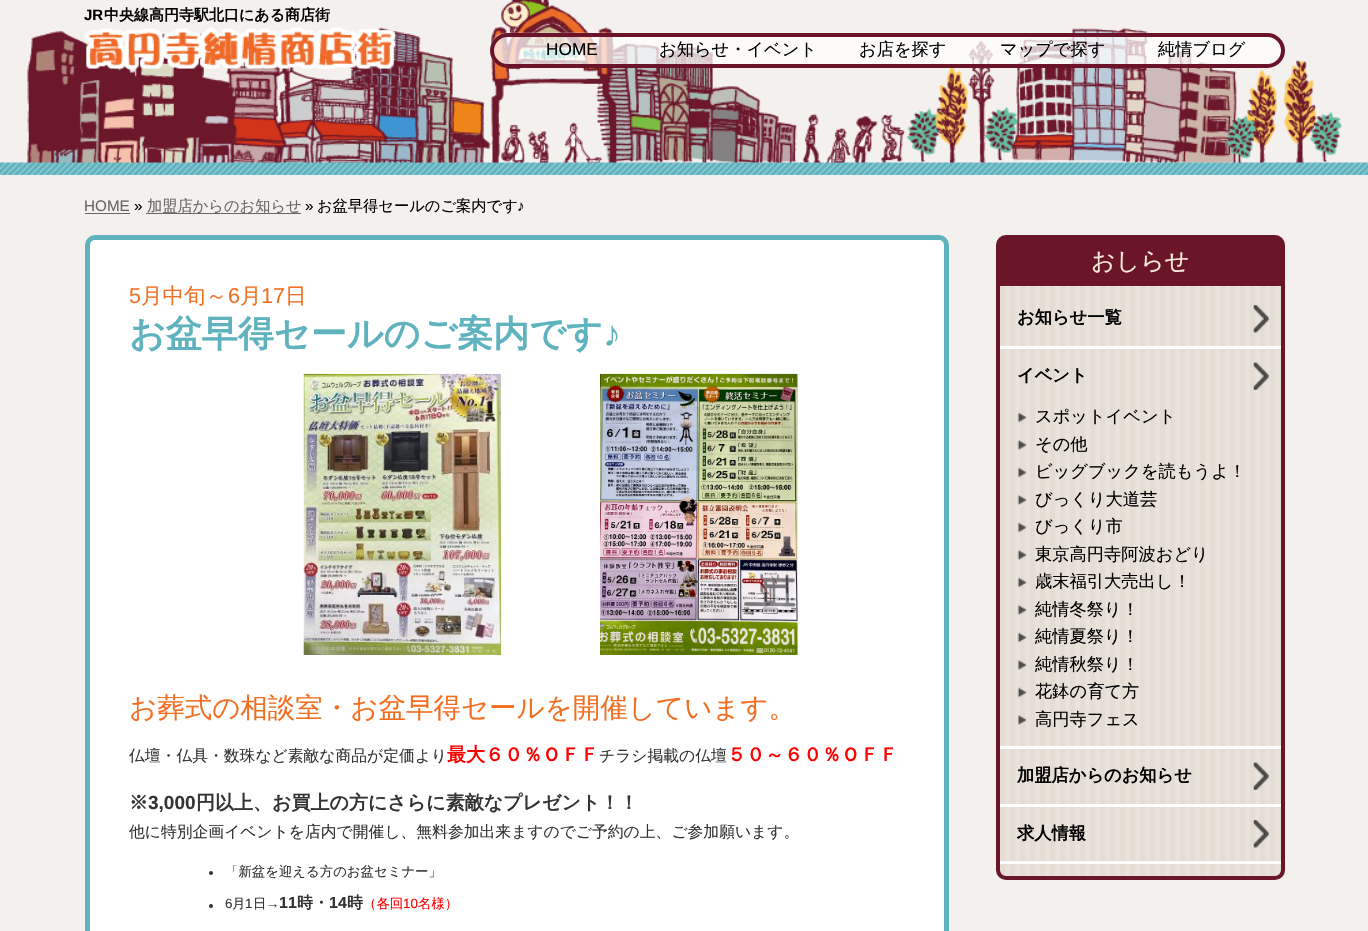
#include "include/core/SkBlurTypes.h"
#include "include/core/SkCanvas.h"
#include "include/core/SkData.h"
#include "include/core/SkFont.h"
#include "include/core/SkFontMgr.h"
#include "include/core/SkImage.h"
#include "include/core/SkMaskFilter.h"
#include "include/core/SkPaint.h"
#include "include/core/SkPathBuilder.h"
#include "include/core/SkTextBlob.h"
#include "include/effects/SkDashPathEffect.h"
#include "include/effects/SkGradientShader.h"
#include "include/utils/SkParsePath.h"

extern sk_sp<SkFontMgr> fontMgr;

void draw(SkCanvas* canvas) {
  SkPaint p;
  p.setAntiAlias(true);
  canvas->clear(SkColorSetRGB(243, 240, 237));
  canvas->drawImageRect(SkImages::DeferredFromEncodedData(SkData::MakeFromFileName("images/1.png")), SkRect::MakeLTRB(27, 0, 1342, 163), SkSamplingOptions());
  canvas->drawImageRect(SkImages::DeferredFromEncodedData(SkData::MakeFromFileName("images/2.png")), SkRect::MakeLTRB(0, 162, 1368, 175), SkSamplingOptions());
  canvas->drawImageRect(SkImages::DeferredFromEncodedData(SkData::MakeFromFileName("images/3.png")), SkRect::MakeLTRB(85, 27, 395, 69), SkSamplingOptions());
  canvas->drawImageRect(SkImages::DeferredFromEncodedData(SkData::MakeFromFileName("images/4.png")), SkRect::MakeLTRB(490, 32, 1285, 68), SkSamplingOptions());
  p.setStyle(SkPaint::kStroke_Style);
  p.setStrokeWidth(4);
  p.setColor(SkColorSetRGB(107, 19, 41));
  canvas->drawRoundRect(SkRect::MakeLTRB(492, 35, 1283, 66), 15.5f, 15.5f, p);
  p.setStyle(SkPaint::kFill_Style);
  p.setColor(SkColorSetRGB(102, 102, 102));
  canvas->drawRect(SkRect::MakeLTRB(85, 213, 130, 214), p);
  canvas->drawRect(SkRect::MakeLTRB(146, 213, 301, 214), p);
  p.setColor(SK_ColorWHITE);
  canvas->drawRoundRect(SkRect::MakeLTRB(87.5f, 237.5f, 946.5f, 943.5f), 7.5f, 7.5f, p);
  p.setStyle(SkPaint::kStroke_Style);
  p.setStrokeWidth(5);
  p.setColor(SkColorSetRGB(95, 179, 190));
  canvas->drawRoundRect(SkRect::MakeLTRB(87.5f, 237.5f, 946.5f, 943.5f), 7.5f, 7.5f, p);
  canvas->drawImageRect(SkImages::DeferredFromEncodedData(SkData::MakeFromFileName("images/5.png")), SkRect::MakeLTRB(303, 373, 502, 655), SkSamplingOptions());
  canvas->drawImageRect(SkImages::DeferredFromEncodedData(SkData::MakeFromFileName("images/6.png")), SkRect::MakeLTRB(600, 373, 798, 655), SkSamplingOptions());
  p.setStyle(SkPaint::kFill_Style);
  p.setColor(SkColorSetRGB(51, 51, 51));
  canvas->drawCircle(211, 873, 2, p);
  canvas->drawCircle(211, 906, 2, p);
  canvas->drawImageRect(SkImages::DeferredFromEncodedData(SkData::MakeFromFileName("images/7.png")), SkRect::MakeLTRB(996, 235, 1285, 880), SkSamplingOptions());
  p.setStyle(SkPaint::kStroke_Style);
  p.setStrokeWidth(4);
  p.setColor(SkColorSetRGB(106, 21, 40));
  canvas->drawRoundRect(SkRect::MakeLTRB(998, 237, 1283, 878), 8, 8, p);
  p.setStyle(SkPaint::kFill_Style);
  canvas->drawRect(SkRect::MakeLTRB(1000, 239, 1281, 286), p);
  p.setColor(SK_ColorWHITE);
  canvas->drawRect(SkRect::MakeLTRB(1000, 346, 1281, 349), p);
  canvas->drawImageRect(SkImages::DeferredFromEncodedData(SkData::MakeFromFileName("images/8.png")), SkRect::MakeLTRB(1253, 305, 1269, 333), SkSamplingOptions());
  canvas->drawRect(SkRect::MakeLTRB(1000, 746, 1281, 749), p);
  canvas->drawImageRect(SkImages::DeferredFromEncodedData(SkData::MakeFromFileName("images/9.png")), SkRect::MakeLTRB(1253, 362, 1269, 390), SkSamplingOptions());
  canvas->drawImageRect(SkImages::DeferredFromEncodedData(SkData::MakeFromFileName("images/10.png")), SkRect::MakeLTRB(1017, 412, 1027, 423), SkSamplingOptions());
  canvas->drawImageRect(SkImages::DeferredFromEncodedData(SkData::MakeFromFileName("images/11.png")), SkRect::MakeLTRB(1017, 440, 1027, 450), SkSamplingOptions());
  canvas->drawImageRect(SkImages::DeferredFromEncodedData(SkData::MakeFromFileName("images/10.png")), SkRect::MakeLTRB(1017, 467, 1027, 478), SkSamplingOptions());
  canvas->drawImageRect(SkImages::DeferredFromEncodedData(SkData::MakeFromFileName("images/11.png")), SkRect::MakeLTRB(1017, 495, 1027, 505), SkSamplingOptions());
  canvas->drawImageRect(SkImages::DeferredFromEncodedData(SkData::MakeFromFileName("images/10.png")), SkRect::MakeLTRB(1017, 522, 1027, 533), SkSamplingOptions());
  canvas->drawImageRect(SkImages::DeferredFromEncodedData(SkData::MakeFromFileName("images/11.png")), SkRect::MakeLTRB(1017, 550, 1027, 560), SkSamplingOptions());
  canvas->drawImageRect(SkImages::DeferredFromEncodedData(SkData::MakeFromFileName("images/10.png")), SkRect::MakeLTRB(1017, 577, 1027, 588), SkSamplingOptions());
  canvas->drawImageRect(SkImages::DeferredFromEncodedData(SkData::MakeFromFileName("images/11.png")), SkRect::MakeLTRB(1017, 605, 1027, 615), SkSamplingOptions());
  canvas->drawImageRect(SkImages::DeferredFromEncodedData(SkData::MakeFromFileName("images/10.png")), SkRect::MakeLTRB(1017, 632, 1027, 643), SkSamplingOptions());
  canvas->drawImageRect(SkImages::DeferredFromEncodedData(SkData::MakeFromFileName("images/11.png")), SkRect::MakeLTRB(1017, 660, 1027, 670), SkSamplingOptions());
  canvas->drawImageRect(SkImages::DeferredFromEncodedData(SkData::MakeFromFileName("images/10.png")), SkRect::MakeLTRB(1017, 687, 1027, 698), SkSamplingOptions());
  canvas->drawImageRect(SkImages::DeferredFromEncodedData(SkData::MakeFromFileName("images/11.png")), SkRect::MakeLTRB(1017, 715, 1027, 725), SkSamplingOptions());
  canvas->drawRect(SkRect::MakeLTRB(1000, 804, 1281, 807), p);
  canvas->drawImageRect(SkImages::DeferredFromEncodedData(SkData::MakeFromFileName("images/9.png")), SkRect::MakeLTRB(1253, 762, 1269, 790), SkSamplingOptions());
  canvas->drawRect(SkRect::MakeLTRB(1000, 861, 1281, 864), p);
  canvas->drawImageRect(SkImages::DeferredFromEncodedData(SkData::MakeFromFileName("images/8.png")), SkRect::MakeLTRB(1253, 820, 1269, 848), SkSamplingOptions());
  SkFont font1(fontMgr->matchFamilyStyle("Liberation Sans", SkFontStyle::Bold()), 15);
  font1.setSubpixel(true);
  p.setColor(SK_ColorBLACK);
  canvas->drawString("JR", 84, 20, font1, p);
  SkFont font2(fontMgr->matchFamilyStyle("WenQuanYi Zen Hei", SkFontStyle::Bold()), 15);
  font2.setSubpixel(true);
  canvas->drawString("中央線高円寺駅北口にある商店街", 104, 20, font2, p);
  SkFont font3(fontMgr->matchFamilyStyle("Liberation Sans", SkFontStyle::Normal()), 17.25f);
  font3.setSubpixel(true);
  canvas->drawString("HOME", 546, 55, font3, p);
  SkFont font4(fontMgr->matchFamilyStyle("WenQuanYi Zen Hei", SkFontStyle(500, SkFontStyle::kNormal_Width, SkFontStyle::kUpright_Slant)), 17.25f);
  font4.setSubpixel(true);
  canvas->drawString("お知らせ・イベント", 659, 55, font4, p);
  canvas->drawString("お店を探す", 859, 55, font4, p);
  canvas->drawString("マップで探す", 1000, 55, font4, p);
  canvas->drawString("純情ブログ", 1158, 55, font4, p);
  SkFont font5(fontMgr->matchFamilyStyle("Liberation Sans", SkFontStyle::Normal()), 15.25f);
  font5.setSubpixel(true);
  p.setColor(SkColorSetRGB(102, 102, 102));
  canvas->drawString("HOME", 84, 211, font5, p);
  p.setColor(SK_ColorBLACK);
  canvas->drawString("»", 134, 211, font5, p);
  SkFont font6(fontMgr->matchFamilyStyle("WenQuanYi Zen Hei", SkFontStyle(500, SkFontStyle::kNormal_Width, SkFontStyle::kUpright_Slant)), 15.25f);
  font6.setSubpixel(true);
  p.setColor(SkColorSetRGB(102, 102, 102));
  canvas->drawString("加盟店からのお知らせ", 147, 211, font6, p);
  p.setColor(SK_ColorBLACK);
  canvas->drawString("»", 305, 211, font5, p);
  canvas->drawString("お盆早得セールのご案内です", 317, 211, font6, p);
  canvas->drawString("♪", 517, 211, font5, p);
  SkFont font7(fontMgr->matchFamilyStyle("Liberation Sans", SkFontStyle::Normal()), 21.5f);
  font7.setSubpixel(true);
  p.setColor(SkColorSetRGB(242, 110, 33));
  canvas->drawString("5", 129, 303, font7, p);
  SkFont font8(fontMgr->matchFamilyStyle("WenQuanYi Zen Hei", SkFontStyle(500, SkFontStyle::kNormal_Width, SkFontStyle::kUpright_Slant)), 21.5f);
  font8.setSubpixel(true);
  canvas->drawString("月中旬～", 141, 303, font8, p);
  canvas->drawString("6", 228, 303, font7, p);
  canvas->drawString("月", 240, 303, font8, p);
  canvas->drawString("17", 261, 303, font7, p);
  canvas->drawString("日", 285, 303, font8, p);
  SkFont font9(fontMgr->matchFamilyStyle("WenQuanYi Zen Hei", SkFontStyle::Bold()), 36);
  font9.setSubpixel(true);
  p.setColor(SkColorSetRGB(95, 179, 190));
  canvas->drawString("お盆早得セールのご案内です", 129, 346, font9, p);
  SkFont font10(fontMgr->matchFamilyStyle("Liberation Sans", SkFontStyle::Bold()), 36);
  font10.setSubpixel(true);
  canvas->drawString("♪", 603, 346, font10, p);
  SkFont font11(fontMgr->matchFamilyStyle("WenQuanYi Zen Hei", SkFontStyle(500, SkFontStyle::kNormal_Width, SkFontStyle::kUpright_Slant)), 27.5f);
  font11.setSubpixel(true);
  p.setColor(SkColorSetRGB(242, 110, 33));
  canvas->drawString("お葬式の相談室・お盆早得セールを開催しています。", 129, 717, font11, p);
  SkFont font12(fontMgr->matchFamilyStyle("WenQuanYi Zen Hei", SkFontStyle(500, SkFontStyle::kNormal_Width, SkFontStyle::kUpright_Slant)), 15.8f);
  font12.setSubpixel(true);
  p.setColor(SkColorSetRGB(51, 51, 51));
  canvas->drawString("仏壇・仏具・数珠など素敵な商品が定価より", 129, 761, font12, p);
  SkFont font13(fontMgr->matchFamilyStyle("WenQuanYi Zen Hei", SkFontStyle::Bold()), 19);
  font13.setSubpixel(true);
  p.setColor(SkColorSetRGB(255, 0, 0));
  canvas->drawString("最大６０％ＯＦＦ", 447, 761, font13, p);
  p.setColor(SkColorSetRGB(51, 51, 51));
  canvas->drawString("チラシ掲載の仏壇", 599, 761, font12, p);
  p.setColor(SkColorSetRGB(255, 0, 0));
  canvas->drawString("５０～６０％ＯＦＦ", 727, 761, font13, p);
  p.setColor(SkColorSetRGB(51, 51, 51));
  canvas->drawString("※", 129, 809, font13, p);
  SkFont font14(fontMgr->matchFamilyStyle("Liberation Sans", SkFontStyle::Bold()), 19);
  font14.setSubpixel(true);
  canvas->drawString("3,000", 148, 809, font14, p);
  canvas->drawString("円以上、お買上の方にさらに素敵なプレゼント！！", 196, 809, font13, p);
  canvas->drawString("他に特別企画イベントを店内で開催し、無料参加出来ますのでご予約の上、ご参加願います。", 129, 837, font12, p);
  SkFont font15(fontMgr->matchFamilyStyle("WenQuanYi Zen Hei", SkFontStyle(500, SkFontStyle::kNormal_Width, SkFontStyle::kUpright_Slant)), 13.4f);
  font15.setSubpixel(true);
  canvas->drawString("「新盆を迎える方のお盆セミナー」", 225, 876, font15, p);
  SkFont font16(fontMgr->matchFamilyStyle("Liberation Sans", SkFontStyle::Normal()), 13.4f);
  font16.setSubpixel(true);
  canvas->drawString("6", 225, 908, font16, p);
  canvas->drawString("月", 232, 908, font15, p);
  canvas->drawString("1", 245, 908, font16, p);
  canvas->drawString("日", 253, 908, font15, p);
  canvas->drawString("→", 266, 908, font16, p);
  SkFont font17(fontMgr->matchFamilyStyle("Liberation Sans", SkFontStyle::Bold()), 16);
  font17.setSubpixel(true);
  canvas->drawString("11", 279, 908, font17, p);
  SkFont font18(fontMgr->matchFamilyStyle("WenQuanYi Zen Hei", SkFontStyle::Bold()), 16);
  font18.setSubpixel(true);
  canvas->drawString("時・", 297, 908, font18, p);
  canvas->drawString("14", 329, 908, font17, p);
  canvas->drawString("時", 347, 908, font18, p);
  p.setColor(SkColorSetRGB(255, 0, 0));
  canvas->drawString("（各回", 363, 908, font15, p);
  canvas->drawString("10", 403, 908, font16, p);
  canvas->drawString("名様）", 418, 908, font15, p);
  SkFont font19(fontMgr->matchFamilyStyle("WenQuanYi Zen Hei", SkFontStyle(500, SkFontStyle::kNormal_Width, SkFontStyle::kUpright_Slant)), 24);
  font19.setSubpixel(true);
  p.setColor(SkColorSetRGB(248, 237, 217));
  canvas->drawString("おしらせ", 1091, 269, font19, p);
  SkFont font20(fontMgr->matchFamilyStyle("WenQuanYi Zen Hei", SkFontStyle::Bold()), 17.25f);
  font20.setSubpixel(true);
  p.setColor(SK_ColorBLACK);
  canvas->drawString("お知らせ一覧", 1017, 323, font20, p);
  canvas->drawString("イベント", 1017, 381, font20, p);
  canvas->drawString("スポットイベント", 1035, 422, font4, p);
  canvas->drawString("その他", 1035, 450, font4, p);
  canvas->drawString("ビッグブックを読もうよ！", 1035, 477, font4, p);
  canvas->drawString("びっくり大道芸", 1035, 505, font4, p);
  canvas->drawString("びっくり市", 1035, 532, font4, p);
  canvas->drawString("東京高円寺阿波おどり", 1035, 560, font4, p);
  canvas->drawString("歳末福引大売出し！", 1035, 587, font4, p);
  canvas->drawString("純情冬祭り！", 1035, 615, font4, p);
  canvas->drawString("純情夏祭り！", 1035, 642, font4, p);
  canvas->drawString("純情秋祭り！", 1035, 670, font4, p);
  canvas->drawString("花鉢の育て方", 1035, 697, font4, p);
  canvas->drawString("高円寺フェス", 1035, 725, font4, p);
  canvas->drawString("加盟店からのお知らせ", 1017, 781, font20, p);
  canvas->drawString("求人情報", 1017, 839, font20, p);
}
